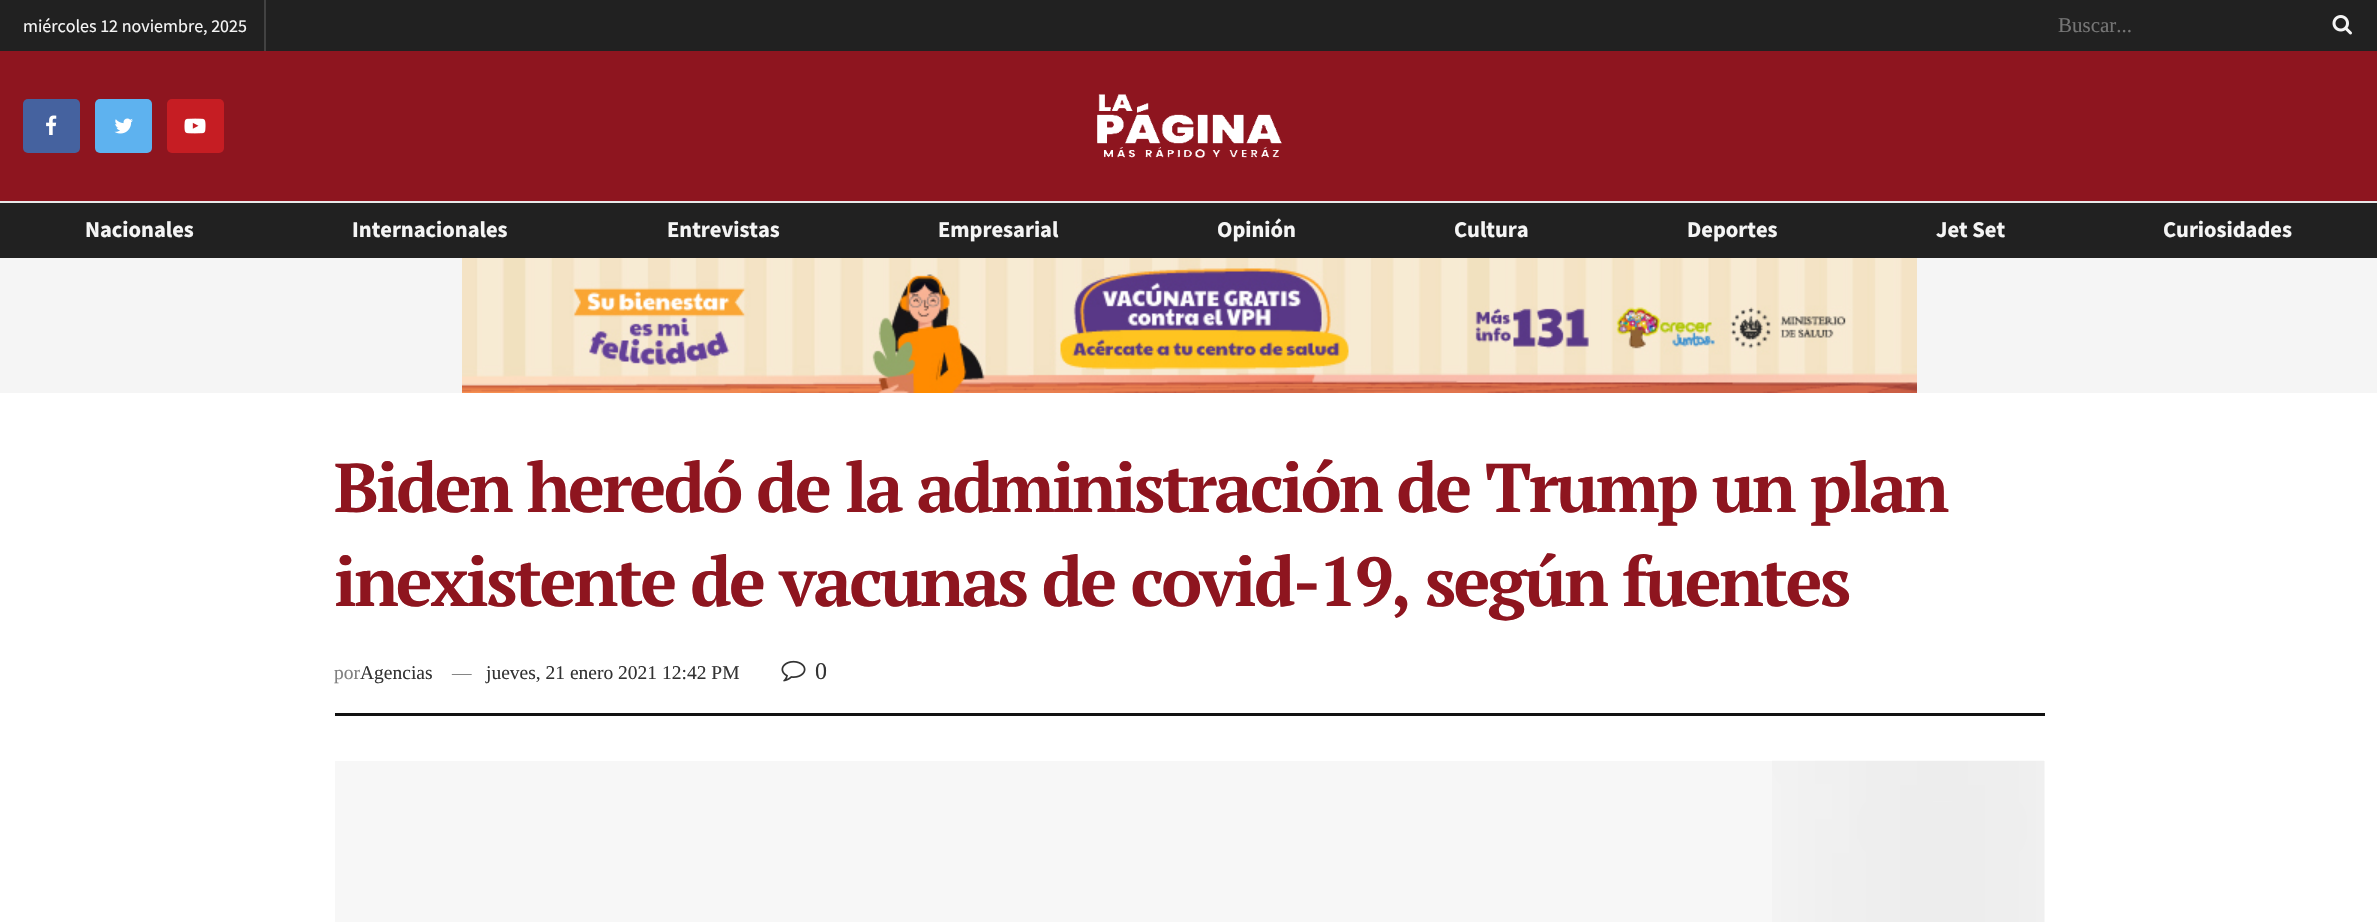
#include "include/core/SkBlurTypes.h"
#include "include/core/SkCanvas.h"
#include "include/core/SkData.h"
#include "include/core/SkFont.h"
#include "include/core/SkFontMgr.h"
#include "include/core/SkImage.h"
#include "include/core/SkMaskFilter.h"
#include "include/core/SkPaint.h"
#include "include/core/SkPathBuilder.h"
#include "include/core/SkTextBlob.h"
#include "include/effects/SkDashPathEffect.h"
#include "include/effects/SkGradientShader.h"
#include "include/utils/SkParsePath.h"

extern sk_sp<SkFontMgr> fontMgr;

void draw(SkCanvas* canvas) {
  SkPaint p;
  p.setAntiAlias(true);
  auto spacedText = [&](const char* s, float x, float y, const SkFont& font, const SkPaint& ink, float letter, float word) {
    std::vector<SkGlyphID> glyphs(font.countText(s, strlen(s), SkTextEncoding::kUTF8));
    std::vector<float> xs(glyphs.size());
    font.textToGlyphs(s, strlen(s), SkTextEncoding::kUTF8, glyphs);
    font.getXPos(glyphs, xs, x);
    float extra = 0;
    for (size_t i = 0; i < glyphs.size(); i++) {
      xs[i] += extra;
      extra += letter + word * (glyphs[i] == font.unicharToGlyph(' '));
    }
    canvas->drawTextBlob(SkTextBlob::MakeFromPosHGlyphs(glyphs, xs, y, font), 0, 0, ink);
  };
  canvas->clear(SK_ColorWHITE);
  p.setColor(SkColorSetRGB(33, 33, 33));
  canvas->drawRect(SkRect::MakeLTRB(0, 0, 2377, 51), p);
  p.setColor(SkColorSetRGB(66, 66, 66));
  canvas->drawRect(SkRect::MakeLTRB(264, 0, 266, 51), p);
  canvas->drawImageRect(SkImages::DeferredFromEncodedData(SkData::MakeFromFileName("images/1.png")), SkRect::MakeLTRB(2332, 15, 2352, 35), SkSamplingOptions());
  p.setColor(SkColorSetRGB(142, 21, 31));
  canvas->drawRect(SkRect::MakeLTRB(0, 51, 2377, 201), p);
  p.setColor(SkColorSetRGB(69, 98, 159));
  canvas->drawRoundRect(SkRect::MakeLTRB(23, 99, 80, 153), 5, 5, p);
  canvas->drawImageRect(SkImages::DeferredFromEncodedData(SkData::MakeFromFileName("images/2.png")), SkRect::MakeLTRB(46, 115, 57, 135), SkSamplingOptions());
  p.setColor(SkColorSetRGB(94, 178, 239));
  canvas->drawRoundRect(SkRect::MakeLTRB(95, 99, 152, 153), 5, 5, p);
  canvas->drawImageRect(SkImages::DeferredFromEncodedData(SkData::MakeFromFileName("images/3.png")), SkRect::MakeLTRB(114, 118, 133, 134), SkSamplingOptions());
  p.setColor(SkColorSetRGB(198, 29, 35));
  canvas->drawRoundRect(SkRect::MakeLTRB(167, 99, 224, 153), 5, 5, p);
  canvas->drawImageRect(SkImages::DeferredFromEncodedData(SkData::MakeFromFileName("images/4.png")), SkRect::MakeLTRB(184, 118, 206, 134), SkSamplingOptions());
  canvas->drawImageRect(SkImages::DeferredFromEncodedData(SkData::MakeFromFileName("images/5.png")), SkRect::MakeLTRB(1097, 94, 1282, 158), SkSamplingOptions());
  p.setColor(SkColorSetRGB(33, 33, 33));
  canvas->drawRect(SkRect::MakeLTRB(0, 203, 2377, 258), p);
  p.setColor(SkColorSetRGB(232, 232, 232));
  canvas->drawRect(SkRect::MakeLTRB(0, 201, 2377, 203), p);
  p.setColor(SkColorSetRGB(245, 245, 245));
  canvas->drawRect(SkRect::MakeLTRB(0, 258, 2377, 393), p);
  canvas->drawImageRect(SkImages::DeferredFromEncodedData(SkData::MakeFromFileName("images/6.png")), SkRect::MakeLTRB(462, 258, 1917, 393), SkSamplingOptions());
  p.setColor(SkColorSetRGB(17, 17, 17));
  canvas->drawRect(SkRect::MakeLTRB(335, 713, 2045, 716), p);
  canvas->drawImageRect(SkImages::DeferredFromEncodedData(SkData::MakeFromFileName("images/7.png")), SkRect::MakeLTRB(781, 660, 806, 682), SkSamplingOptions());
  p.setColor(SkColorSetRGB(247, 247, 247));
  canvas->drawRect(SkRect::MakeLTRB(335, 761, 2045, 922), p);
  canvas->drawImageRect(SkImages::DeferredFromEncodedData(SkData::MakeFromFileName("images/8.png")), SkRect::MakeLTRB(1772, 760, 2044, 922), SkSamplingOptions());
  SkFont font1(fontMgr->matchFamilyStyle("Source Sans Pro", SkFontStyle::Normal()), 18);
  font1.setSubpixel(true);
  p.setColor(SkColorSetRGB(245, 245, 245));
  canvas->drawString("miércoles 12 noviembre, 2025", 23, 32, font1, p);
  SkFont font2(fontMgr->matchFamilyStyle("Tinos", SkFontStyle::Normal()), 21);
  font2.setSubpixel(true);
  p.setColor(SkColorSetRGB(117, 117, 117));
  canvas->drawString("Buscar...", 2058, 32, font2, p);
  SkFont font3(fontMgr->matchFamilyStyle("Source Sans Pro", SkFontStyle::Bold()), 22.5f);
  font3.setSubpixel(true);
  p.setColor(SkColorSetRGB(245, 245, 245));
  canvas->drawString("Nacionales", 85, 237, font3, p);
  canvas->drawString("Internacionales", 352, 237, font3, p);
  canvas->drawString("Entrevistas", 667, 237, font3, p);
  canvas->drawString("Empresarial", 938, 237, font3, p);
  canvas->drawString("Opinión", 1217, 237, font3, p);
  canvas->drawString("Cultura", 1454, 237, font3, p);
  canvas->drawString("Deportes", 1687, 237, font3, p);
  canvas->drawString("Jet Set", 1936, 237, font3, p);
  canvas->drawString("Curiosidades", 2163, 237, font3, p);
  SkFont font4(fontMgr->matchFamilyStyle("PT Serif", SkFontStyle::Bold()), 69);
  font4.setSubpixel(true);
  p.setColor(SkColorSetRGB(142, 21, 31));
  spacedText("Biden heredó de la administración de Trump un plan", 334, 512, font4, p, -2.75f, 0);
  spacedText("inexistente de vacunas de covid-19, según fuentes", 334, 606, font4, p, -2.75f, 0);
  SkFont font5(fontMgr->matchFamilyStyle("Tinos", SkFontStyle::Normal()), 19.5f);
  font5.setSubpixel(true);
  p.setColor(SkColorSetRGB(128, 128, 128));
  canvas->drawString("por", 334, 679, font5, p);
  p.setColor(SkColorSetRGB(51, 51, 51));
  canvas->drawString("Agencias", 360, 679, font5, p);
  p.setColor(SkColorSetRGB(128, 128, 128));
  canvas->drawString("—", 452, 679, font5, p);
  p.setColor(SkColorSetRGB(51, 51, 51));
  canvas->drawString("jueves, 21 enero 2021 12:42 PM", 486, 679, font5, p);
  SkFont font6(fontMgr->matchFamilyStyle("Tinos", SkFontStyle::Normal()), 24);
  font6.setSubpixel(true);
  canvas->drawString("0", 815, 679, font6, p);
}
